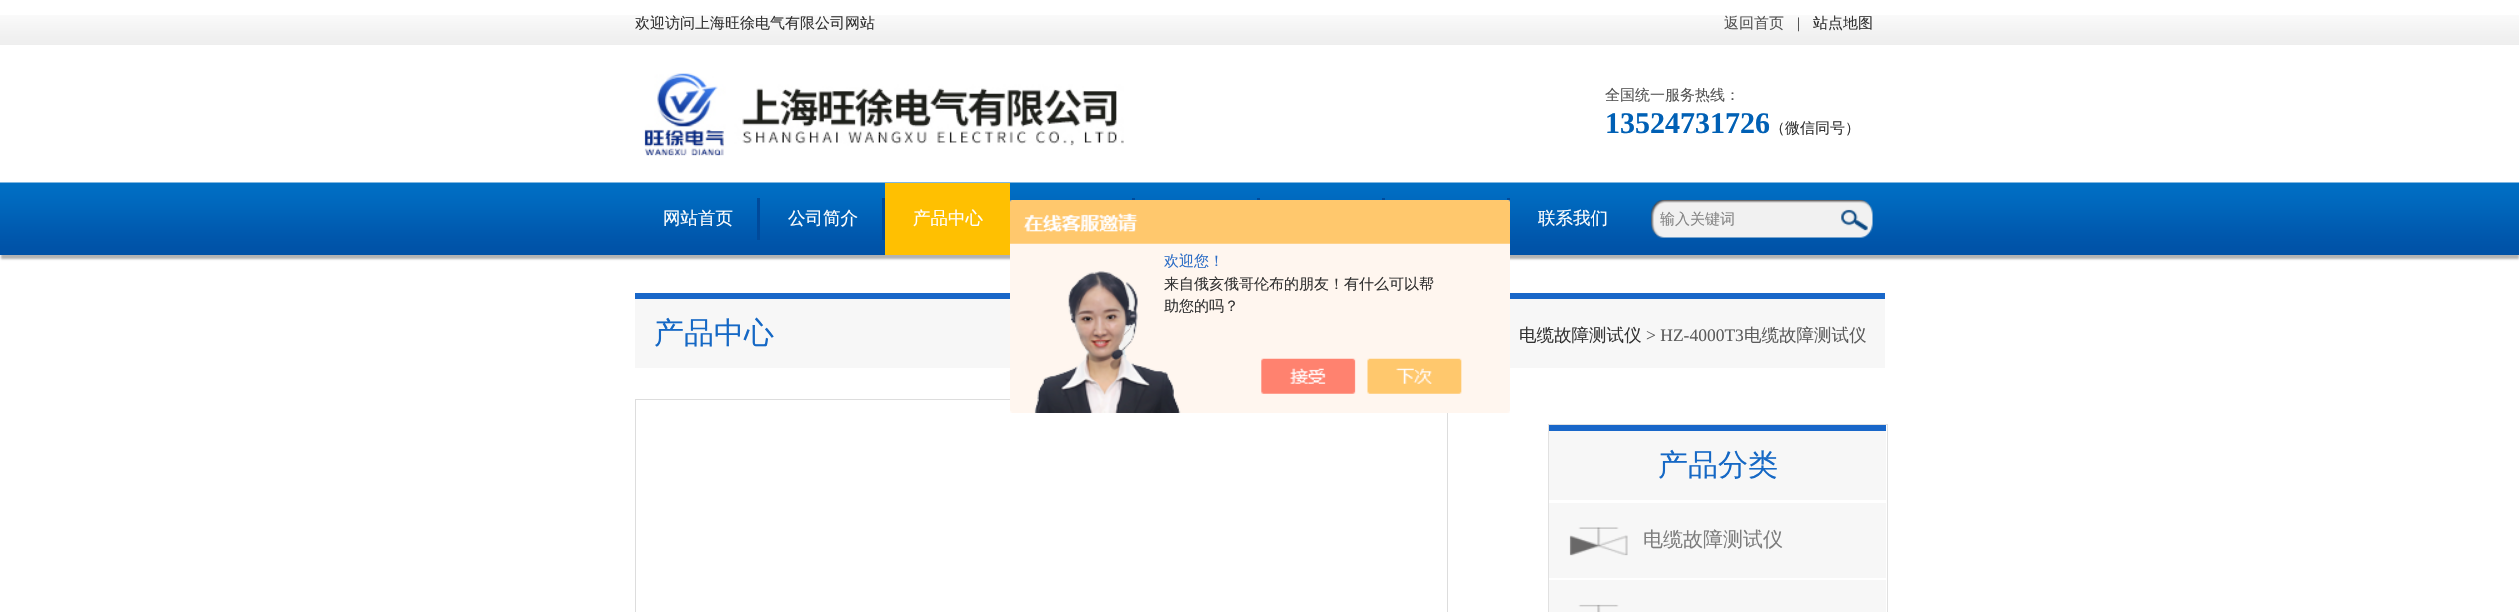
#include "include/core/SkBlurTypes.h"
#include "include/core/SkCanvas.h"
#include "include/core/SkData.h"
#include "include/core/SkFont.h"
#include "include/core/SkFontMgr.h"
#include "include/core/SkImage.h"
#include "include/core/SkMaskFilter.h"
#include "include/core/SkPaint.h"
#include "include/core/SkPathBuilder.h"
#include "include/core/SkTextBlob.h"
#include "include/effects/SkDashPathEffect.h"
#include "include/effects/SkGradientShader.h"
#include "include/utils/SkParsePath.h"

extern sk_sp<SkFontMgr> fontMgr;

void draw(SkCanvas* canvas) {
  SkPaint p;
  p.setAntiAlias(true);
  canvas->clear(SK_ColorWHITE);
  canvas->drawImageRect(SkImages::DeferredFromEncodedData(SkData::MakeFromFileName("images/1.png")), SkRect::MakeLTRB(0, 15, 2519, 45), SkSamplingOptions());
  canvas->drawImageRect(SkImages::DeferredFromEncodedData(SkData::MakeFromFileName("images/2.png")), SkRect::MakeLTRB(644, 73, 1124, 156), SkSamplingOptions());
  p.setColor(SkColorSetARGB(77, 0, 0, 0));
  p.setMaskFilter(SkMaskFilter::MakeBlur(kNormal_SkBlurStyle, 1));
  canvas->drawRect(SkRect::MakeLTRB(1, 189, 2519, 259), p);
  p.setMaskFilter(nullptr);
  canvas->drawImageRect(SkImages::DeferredFromEncodedData(SkData::MakeFromFileName("images/3.png")), SkRect::MakeLTRB(0, 182, 2519, 255), SkSamplingOptions());
  p.setColor(SkColorSetRGB(1, 74, 154));
  canvas->drawRect(SkRect::MakeLTRB(1132, 198, 1135, 200), p);
  canvas->drawRect(SkRect::MakeLTRB(1257, 198, 1260, 200), p);
  canvas->drawRect(SkRect::MakeLTRB(1382, 198, 1385, 200), p);
  canvas->drawRect(SkRect::MakeLTRB(1507, 198, 1510, 202), p);
  canvas->drawRect(SkRect::MakeLTRB(757, 198, 760, 240), p);
  canvas->drawRect(SkRect::MakeLTRB(882, 198, 885, 240), p);
  p.setColor(SkColorSetRGB(255, 192, 1));
  canvas->drawRect(SkRect::MakeLTRB(885, 183, 1010, 255), p);
  canvas->drawImageRect(SkImages::DeferredFromEncodedData(SkData::MakeFromFileName("images/4.png")), SkRect::MakeLTRB(1651, 200, 1873, 238), SkSamplingOptions());
  canvas->drawImageRect(SkImages::DeferredFromEncodedData(SkData::MakeFromFileName("images/5.png")), SkRect::MakeLTRB(1841, 209, 1868, 231), SkSamplingOptions());
  p.setColor(SkColorSetRGB(247, 247, 247));
  canvas->drawRect(SkRect::MakeLTRB(635, 299, 1885, 368), p);
  p.setColor(SkColorSetRGB(25, 103, 201));
  canvas->drawRect(SkRect::MakeLTRB(635, 293, 1885, 299), p);
  p.setStyle(SkPaint::kStroke_Style);
  p.setStrokeWidth(1);
  p.setColor(SkColorSetRGB(221, 221, 221));
  canvas->drawRect(SkRect::MakeLTRB(635.5f, 399.5f, 1447.5f, 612.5f), p);
  p.setColor(SkColorSetRGB(225, 225, 225));
  canvas->drawRect(SkRect::MakeLTRB(1548.5f, 424.5f, 1887.5f, 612.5f), p);
  p.setStyle(SkPaint::kFill_Style);
  p.setColor(SkColorSetRGB(247, 247, 247));
  canvas->drawRect(SkRect::MakeLTRB(1549, 431, 1886, 500), p);
  p.setColor(SkColorSetRGB(25, 103, 201));
  canvas->drawRect(SkRect::MakeLTRB(1549, 425, 1886, 431), p);
  p.setColor(SkColorSetRGB(247, 247, 247));
  canvas->drawRect(SkRect::MakeLTRB(1549, 503, 1886, 578), p);
  canvas->drawImageRect(SkImages::DeferredFromEncodedData(SkData::MakeFromFileName("images/6.png")), SkRect::MakeLTRB(1569, 527, 1628, 556), SkSamplingOptions());
  canvas->drawRect(SkRect::MakeLTRB(1549, 580, 1886, 612), p);
  canvas->drawImageRect(SkImages::DeferredFromEncodedData(SkData::MakeFromFileName("images/7.png")), SkRect::MakeLTRB(1578, 604, 1619, 612), SkSamplingOptions());
  canvas->drawImageRect(SkImages::DeferredFromEncodedData(SkData::MakeFromFileName("images/8.png")), SkRect::MakeLTRB(1010, 200, 1510, 413), SkSamplingOptions());
  SkFont font1(fontMgr->matchFamilyStyle("WenQuanYi Zen Hei", SkFontStyle(500, SkFontStyle::kNormal_Width, SkFontStyle::kUpright_Slant)), 15);
  font1.setSubpixel(true);
  p.setColor(SkColorSetRGB(51, 51, 51));
  canvas->drawString("欢迎访问上海旺徐电气有限公司网站", 635, 28, font1, p);
  p.setColor(SkColorSetRGB(85, 85, 85));
  canvas->drawString("返回首页", 1724, 28, font1, p);
  SkFont font2(fontMgr->matchFamilyStyle("Liberation Serif", SkFontStyle::Normal()), 15);
  font2.setSubpixel(true);
  p.setColor(SkColorSetRGB(51, 51, 51));
  canvas->drawString("|", 1797, 28, font2, p);
  canvas->drawString("站点地图", 1813, 28, font1, p);
  p.setColor(SkColorSetRGB(85, 85, 85));
  canvas->drawString("全国统一服务热线：", 1605, 100, font1, p);
  SkFont font3(fontMgr->matchFamilyStyle("Liberation Serif", SkFontStyle::Bold()), 30);
  font3.setSubpixel(true);
  p.setColor(SkColorSetRGB(0, 96, 181));
  canvas->drawString("13524731726", 1605, 133, font3, p);
  p.setColor(SkColorSetRGB(51, 51, 51));
  canvas->drawString("（微信同号）", 1770, 133, font1, p);
  SkFont font4(fontMgr->matchFamilyStyle("WenQuanYi Zen Hei", SkFontStyle(500, SkFontStyle::kNormal_Width, SkFontStyle::kUpright_Slant)), 17.5f);
  font4.setSubpixel(true);
  p.setColor(SK_ColorWHITE);
  canvas->drawString("网站首页", 663, 224, font4, p);
  canvas->drawString("公司简介", 788, 224, font4, p);
  canvas->drawString("产品中心", 913, 224, font4, p);
  canvas->drawString("联系我们", 1538, 224, font4, p);
  p.setColor(SkColorSetRGB(133, 133, 133));
  canvas->drawString("输入关键词", 1660, 224, font1, p);
  SkFont font5(fontMgr->matchFamilyStyle("WenQuanYi Zen Hei", SkFontStyle(500, SkFontStyle::kNormal_Width, SkFontStyle::kUpright_Slant)), 30);
  font5.setSubpixel(true);
  p.setColor(SkColorSetRGB(21, 104, 197));
  canvas->drawString("产品中心", 654, 343, font5, p);
  p.setColor(SkColorSetRGB(51, 51, 51));
  canvas->drawString("电缆故障测试仪", 1519, 341, font4, p);
  SkFont font6(fontMgr->matchFamilyStyle("Liberation Serif", SkFontStyle::Normal()), 17.5f);
  font6.setSubpixel(true);
  p.setColor(SkColorSetRGB(92, 92, 92));
  canvas->drawString("> HZ-4000T3", 1646, 341, font6, p);
  canvas->drawString("电缆故障测试仪", 1744, 341, font4, p);
  p.setColor(SkColorSetRGB(21, 104, 197));
  canvas->drawString("产品分类", 1658, 475, font5, p);
  SkFont font7(fontMgr->matchFamilyStyle("WenQuanYi Zen Hei", SkFontStyle(500, SkFontStyle::kNormal_Width, SkFontStyle::kUpright_Slant)), 20);
  font7.setSubpixel(true);
  p.setColor(SkColorSetRGB(125, 125, 125));
  canvas->drawString("电缆故障测试仪", 1643, 546, font7, p);
  p.setColor(SkColorSetRGB(46, 110, 198));
  canvas->drawString("欢迎您！", 1164, 266, font1, p);
  p.setColor(SkColorSetRGB(51, 51, 51));
  canvas->drawString("来自俄亥俄哥伦布的朋友！有什么可以帮", 1164, 289, font1, p);
  canvas->drawString("助您的吗？", 1164, 311, font1, p);
}
